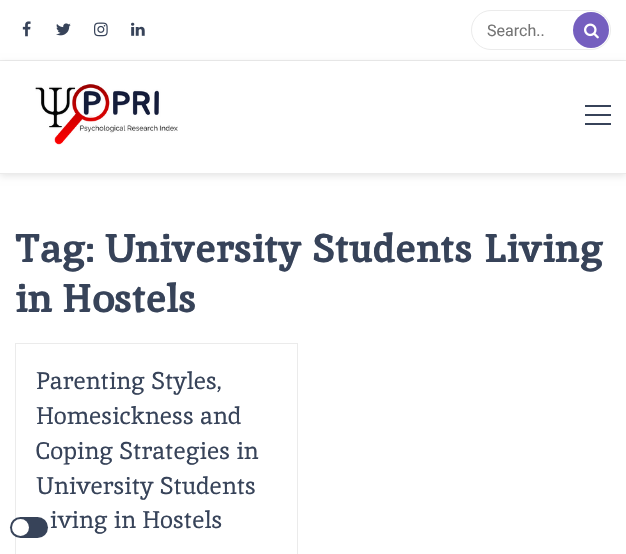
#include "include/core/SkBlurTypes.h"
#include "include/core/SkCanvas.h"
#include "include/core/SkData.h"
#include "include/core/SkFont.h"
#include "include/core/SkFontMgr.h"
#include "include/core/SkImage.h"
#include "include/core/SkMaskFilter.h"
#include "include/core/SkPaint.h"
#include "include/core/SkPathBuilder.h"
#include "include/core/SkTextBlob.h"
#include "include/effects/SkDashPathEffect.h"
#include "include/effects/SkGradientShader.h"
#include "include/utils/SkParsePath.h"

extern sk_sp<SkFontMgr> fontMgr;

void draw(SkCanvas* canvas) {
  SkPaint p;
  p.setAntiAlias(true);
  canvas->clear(SK_ColorWHITE);
  p.setColor(SkColorSetRGB(237, 237, 237));
  canvas->drawRect(SkRect::MakeLTRB(0, 60, 626, 61), p);
  canvas->drawImageRect(SkImages::DeferredFromEncodedData(SkData::MakeFromFileName("images/1.png")), SkRect::MakeLTRB(22, 21, 31, 37), SkSamplingOptions());
  canvas->drawImageRect(SkImages::DeferredFromEncodedData(SkData::MakeFromFileName("images/2.png")), SkRect::MakeLTRB(56, 23, 71, 36), SkSamplingOptions());
  canvas->drawImageRect(SkImages::DeferredFromEncodedData(SkData::MakeFromFileName("images/3.png")), SkRect::MakeLTRB(94, 22, 108, 37), SkSamplingOptions());
  canvas->drawImageRect(SkImages::DeferredFromEncodedData(SkData::MakeFromFileName("images/4.png")), SkRect::MakeLTRB(131, 22, 145, 36), SkSamplingOptions());
  p.setStyle(SkPaint::kStroke_Style);
  p.setStrokeWidth(1);
  p.setColor(SkColorSetRGB(235, 235, 235));
  canvas->drawRoundRect(SkRect::MakeLTRB(471.5f, 10.5f, 610.5f, 49.5f), 19.5f, 19.5f, p);
  p.setStyle(SkPaint::kFill_Style);
  p.setColor(SkColorSetRGB(117, 95, 191));
  canvas->drawCircle(591, 30, 18, p);
  canvas->drawImageRect(SkImages::DeferredFromEncodedData(SkData::MakeFromFileName("images/5.png")), SkRect::MakeLTRB(584, 23, 599, 39), SkSamplingOptions());
  canvas->save();
  canvas->clipPath(SkPathBuilder(SkPathFillType::kEvenOdd).moveTo(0, 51).lineTo(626, 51).lineTo(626, 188).lineTo(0, 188).close().moveTo(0, 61).lineTo(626, 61).lineTo(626, 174).lineTo(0, 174).close().detach(), true);
  p.setColor(SkColorSetARGB(26, 0, 0, 0));
  p.setMaskFilter(SkMaskFilter::MakeBlur(kNormal_SkBlurStyle, 3.5f));
  canvas->drawRect(SkRect::MakeLTRB(0, 63, 626, 176), p);
  p.setMaskFilter(nullptr);
  canvas->restore();
  p.setColor(SkColorSetRGB(235, 235, 235));
  canvas->drawRect(SkRect::MakeLTRB(0, 173, 626, 174), p);
  canvas->drawImageRect(SkImages::DeferredFromEncodedData(SkData::MakeFromFileName("images/6.png")), SkRect::MakeLTRB(35, 84, 178, 145), SkSamplingOptions());
  p.setColor(SkColorSetRGB(55, 67, 89));
  canvas->drawRect(SkRect::MakeLTRB(585, 105, 611, 107), p);
  canvas->drawRect(SkRect::MakeLTRB(585, 114, 611, 116), p);
  canvas->drawRect(SkRect::MakeLTRB(585, 123, 611, 125), p);
  p.setStyle(SkPaint::kStroke_Style);
  p.setColor(SkColorSetRGB(235, 235, 235));
  canvas->drawRect(SkRect::MakeLTRB(15.5f, 343.5f, 297.5f, 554.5f), p);
  p.setStyle(SkPaint::kFill_Style);
  p.setColor(SkColorSetRGB(55, 67, 89));
  canvas->drawRoundRect(SkRect::MakeLTRB(10, 517, 48, 538), 10.5f, 10.5f, p);
  p.setColor(SK_ColorWHITE);
  canvas->drawCircle(20.5f, 527.5f, 8.5f, p);
  SkFont font1(fontMgr->matchFamilyStyle("Roboto", SkFontStyle::Normal()), 16);
  font1.setSubpixel(true);
  p.setColor(SkColorSetRGB(117, 117, 117));
  canvas->drawString("Search..", 487, 36, font1, p);
  SkFont font2(fontMgr->matchFamilyStyle("Inika", SkFontStyle::Bold()), 40);
  font2.setSubpixel(true);
  p.setColor(SkColorSetRGB(55, 67, 89));
  canvas->drawString("Tag: University Students Living", 15, 262, font2, p);
  canvas->drawString("in Hostels", 15, 312, font2, p);
  SkFont font3(fontMgr->matchFamilyStyle("Inika", SkFontStyle::Normal()), 24);
  font3.setSubpixel(true);
  canvas->drawString("Parenting Styles,", 36, 389, font3, p);
  canvas->drawString("Homesickness and", 36, 424, font3, p);
  canvas->drawString("Coping Strategies in", 36, 459, font3, p);
  canvas->drawString("University Students", 36, 494, font3, p);
  canvas->drawString("iving in Hostels", 50, 528, font3, p);
}
